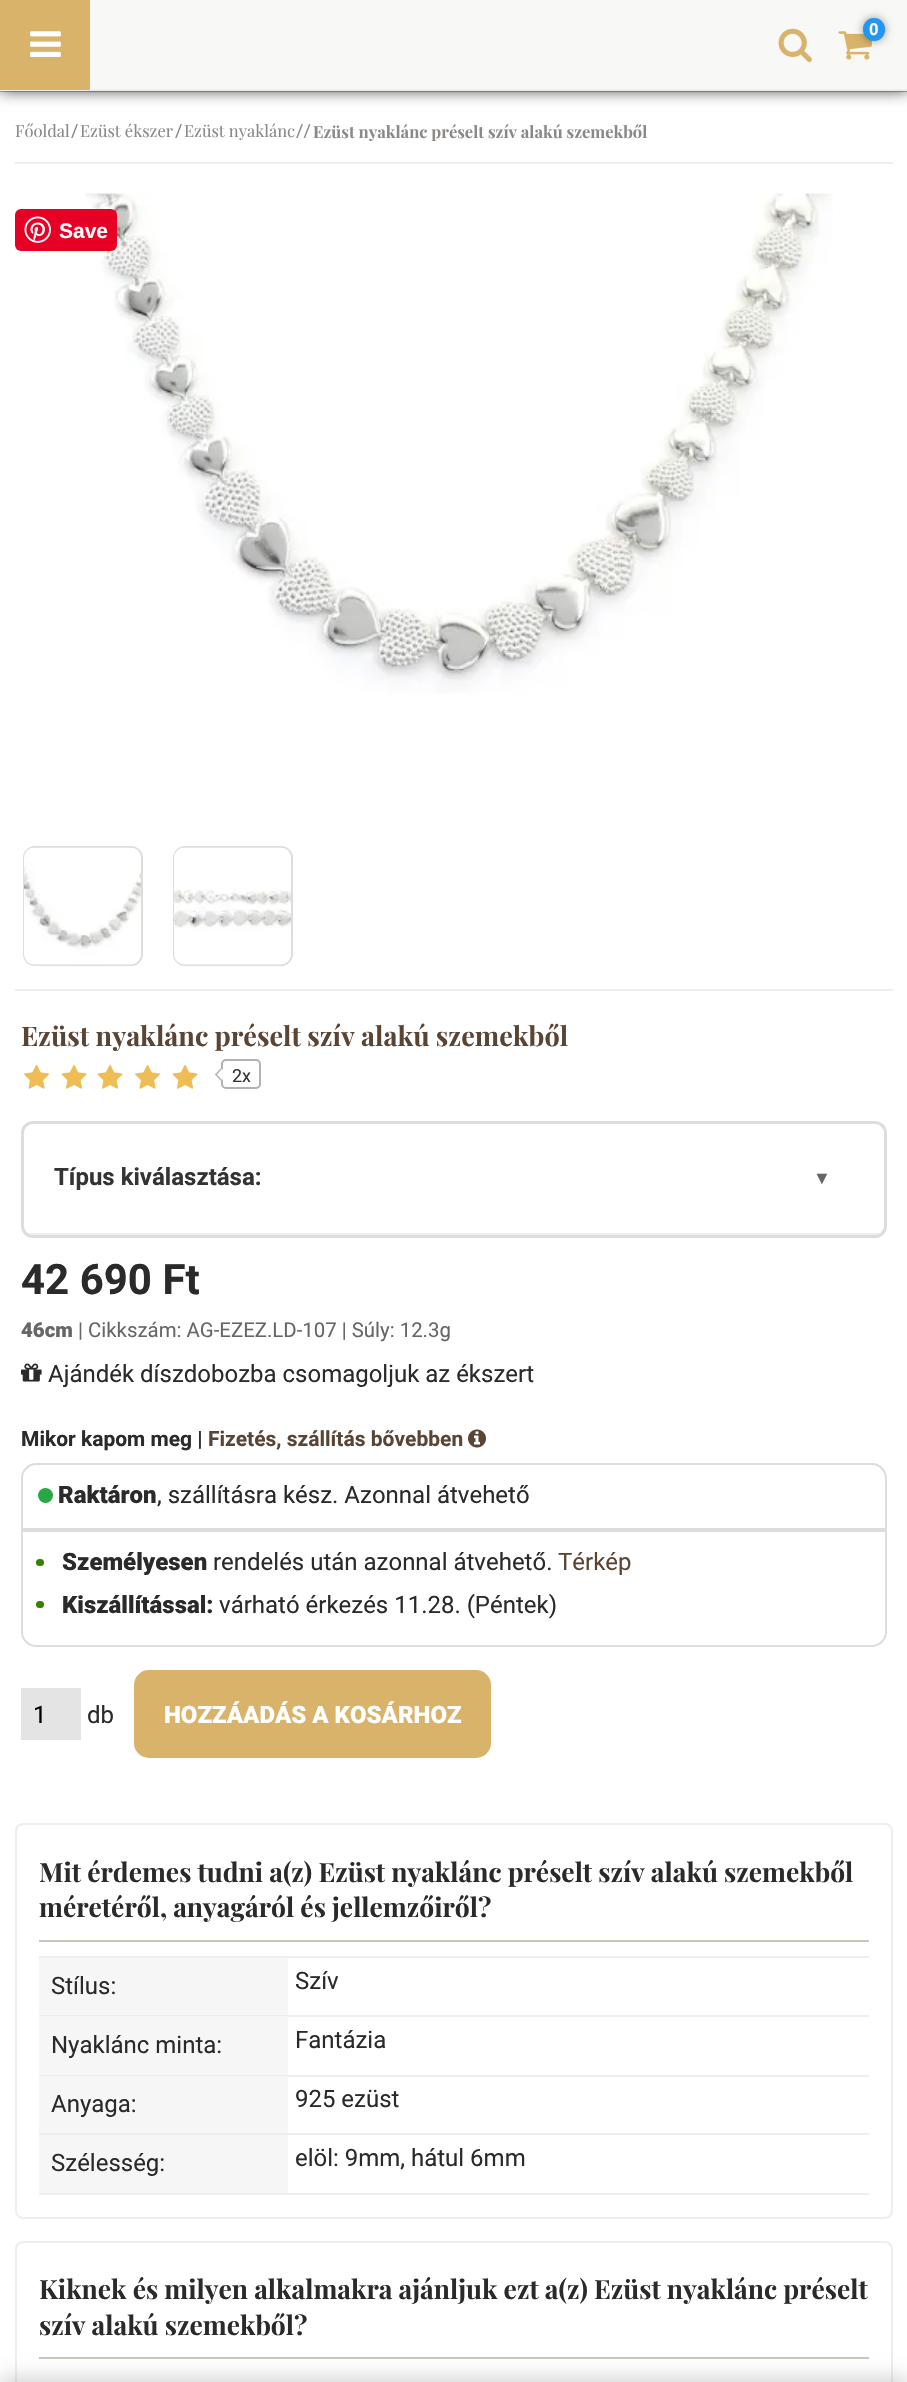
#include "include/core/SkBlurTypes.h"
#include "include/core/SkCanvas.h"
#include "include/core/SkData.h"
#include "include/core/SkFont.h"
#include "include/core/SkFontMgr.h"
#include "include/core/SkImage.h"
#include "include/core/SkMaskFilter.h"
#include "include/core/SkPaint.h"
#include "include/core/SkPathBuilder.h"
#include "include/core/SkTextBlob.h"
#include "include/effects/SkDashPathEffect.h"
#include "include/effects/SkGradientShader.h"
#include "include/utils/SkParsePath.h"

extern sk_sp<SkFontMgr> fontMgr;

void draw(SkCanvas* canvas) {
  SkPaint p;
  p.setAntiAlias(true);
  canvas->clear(SK_ColorWHITE);
  p.setColor(SkColorSetRGB(216, 179, 105));
  canvas->drawRect(SkRect::MakeLTRB(0, 91, 907, 92), p);
  p.setColor(SkColorSetARGB(204, 0, 0, 0));
  p.setMaskFilter(SkMaskFilter::MakeBlur(kNormal_SkBlurStyle, 7.5f));
  canvas->drawRect(SkRect::MakeLTRB(0, 0, 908, 90), p);
  p.setMaskFilter(nullptr);
  p.setColor(SkColorSetRGB(248, 248, 246));
  canvas->drawRect(SkRect::MakeLTRB(90, 0, 907, 89), p);
  p.setColor(SkColorSetRGB(238, 238, 238));
  canvas->drawRect(SkRect::MakeLTRB(0, 89, 907, 91), p);
  p.setColor(SkColorSetRGB(216, 179, 105));
  canvas->drawRect(SkRect::MakeLTRB(0, 0, 90, 90), p);
  canvas->drawImageRect(SkImages::DeferredFromEncodedData(SkData::MakeFromFileName("images/1.png")), SkRect::MakeLTRB(30, 31, 61, 57), SkSamplingOptions());
  canvas->drawImageRect(SkImages::DeferredFromEncodedData(SkData::MakeFromFileName("images/2.png")), SkRect::MakeLTRB(778, 28, 812, 63), SkSamplingOptions());
  canvas->drawImageRect(SkImages::DeferredFromEncodedData(SkData::MakeFromFileName("images/3.png")), SkRect::MakeLTRB(838, 31, 872, 60), SkSamplingOptions());
  p.setColor(SkColorSetARGB(102, 0, 0, 0));
  p.setMaskFilter(SkMaskFilter::MakeBlur(kNormal_SkBlurStyle, 4));
  canvas->drawRoundRect(SkRect::MakeLTRB(863, 18, 885, 41), 11, 11, p);
  p.setMaskFilter(nullptr);
  p.setColor(SkColorSetRGB(33, 150, 243));
  canvas->drawRoundRect(SkRect::MakeLTRB(863, 18, 885, 41), 11, 11, p);
  p.setColor(SkColorSetRGB(238, 238, 238));
  canvas->drawRect(SkRect::MakeLTRB(15, 162, 893, 164), p);
  canvas->drawImageRect(SkImages::DeferredFromEncodedData(SkData::MakeFromFileName("images/5.png")), SkRect::MakeLTRB(85, 193, 833, 694), SkSamplingOptions());
  p.setColor(SkColorSetRGB(230, 0, 35));
  canvas->drawRoundRect(SkRect::MakeLTRB(15, 209, 117, 251), 6, 6, p);
  canvas->drawImageRect(SkImages::DeferredFromEncodedData(SkData::MakeFromFileName("images/4.png")), SkRect::MakeLTRB(24, 216, 51, 243), SkSamplingOptions());
  p.setColor(SkColorSetRGB(238, 238, 238));
  canvas->drawRect(SkRect::MakeLTRB(15, 989, 893, 991), p);
  p.setStyle(SkPaint::kStroke_Style);
  p.setStrokeWidth(2);
  p.setColor(SkColorSetRGB(221, 221, 221));
  canvas->drawRoundRect(SkRect::MakeLTRB(24, 847, 142, 965), 11, 11, p);
  canvas->drawImageRect(SkImages::DeferredFromEncodedData(SkData::MakeFromFileName("images/6.png")), SkRect::MakeLTRB(24, 847, 141, 965), SkSamplingOptions());
  canvas->drawRoundRect(SkRect::MakeLTRB(174, 847, 292, 965), 11, 11, p);
  canvas->drawImageRect(SkImages::DeferredFromEncodedData(SkData::MakeFromFileName("images/7.png")), SkRect::MakeLTRB(174, 847, 291, 965), SkSamplingOptions());
  canvas->drawImageRect(SkImages::DeferredFromEncodedData(SkData::MakeFromFileName("images/8.png")), SkRect::MakeLTRB(24, 1064, 49, 1089), SkSamplingOptions());
  canvas->drawImageRect(SkImages::DeferredFromEncodedData(SkData::MakeFromFileName("images/9.png")), SkRect::MakeLTRB(61, 1064, 87, 1089), SkSamplingOptions());
  canvas->drawImageRect(SkImages::DeferredFromEncodedData(SkData::MakeFromFileName("images/9.png")), SkRect::MakeLTRB(97, 1064, 123, 1089), SkSamplingOptions());
  canvas->drawImageRect(SkImages::DeferredFromEncodedData(SkData::MakeFromFileName("images/8.png")), SkRect::MakeLTRB(135, 1064, 160, 1089), SkSamplingOptions());
  canvas->drawImageRect(SkImages::DeferredFromEncodedData(SkData::MakeFromFileName("images/9.png")), SkRect::MakeLTRB(172, 1064, 198, 1089), SkSamplingOptions());
  p.setColor(SkColorSetRGB(178, 178, 178));
  canvas->drawRoundRect(SkRect::MakeLTRB(222, 1060, 260, 1088), 4, 4, p);
  p.setStyle(SkPaint::kFill_Style);
  p.setColor(SK_ColorWHITE);
  canvas->drawPath(SkPathBuilder().moveTo(221, 1068).lineTo(227.5f, 1074.5f).lineTo(221, 1081).lineTo(215, 1074.5f).close().detach(), p);
  p.setColor(SkColorSetRGB(178, 178, 178));
  canvas->drawPath(SkPathBuilder().moveTo(216, 1073.5f).lineTo(222, 1080).lineTo(221, 1081).lineTo(215, 1074.5f).close().detach(), p);
  canvas->drawPath(SkPathBuilder().moveTo(221, 1068).lineTo(222, 1069).lineTo(216, 1075.5f).lineTo(215, 1074.5f).close().detach(), p);
  p.setStyle(SkPaint::kStroke_Style);
  p.setStrokeWidth(3);
  p.setColor(SkColorSetRGB(221, 221, 221));
  canvas->drawRoundRect(SkRect::MakeLTRB(22.5f, 1122.5f, 885.5f, 1236.5f), 10.5f, 10.5f, p);
  canvas->save();
  canvas->clipPath(SkPathBuilder().moveTo(33, 1124).lineTo(875, 1124).cubicTo(880, 1124, 884, 1128, 884, 1133).lineTo(884, 1226).cubicTo(884, 1231, 880, 1235, 875, 1235).lineTo(33, 1235).cubicTo(28, 1235, 24, 1231, 24, 1226).lineTo(24, 1133).cubicTo(24, 1128, 28, 1124, 33, 1124).close().detach(), true);
  p.setStyle(SkPaint::kFill_Style);
  p.setColor(SkColorSetRGB(238, 238, 238));
  canvas->drawRect(SkRect::MakeLTRB(24, 1233, 884, 1235), p);
  canvas->restore();
  canvas->drawImageRect(SkImages::DeferredFromEncodedData(SkData::MakeFromFileName("images/10.png")), SkRect::MakeLTRB(21, 1363, 42, 1382), SkSamplingOptions());
  canvas->drawImageRect(SkImages::DeferredFromEncodedData(SkData::MakeFromFileName("images/11.png")), SkRect::MakeLTRB(468, 1429, 486, 1448), SkSamplingOptions());
  p.setStyle(SkPaint::kStroke_Style);
  p.setStrokeWidth(2);
  p.setColor(SkColorSetRGB(221, 221, 221));
  canvas->drawPath(SkPathBuilder().moveTo(36, 1464).lineTo(872, 1464).cubicTo(879.5f, 1464, 886, 1470.5f, 886, 1478).lineTo(886, 1529).lineTo(22, 1529).lineTo(22, 1478).cubicTo(22, 1470.5f, 28.5f, 1464, 36, 1464).close().detach(), p);
  p.setStyle(SkPaint::kFill_Style);
  p.setColor(SkColorSetRGB(40, 167, 69));
  canvas->drawCircle(45.5f, 1495.5f, 7.5f, p);
  p.setStyle(SkPaint::kStroke_Style);
  p.setColor(SkColorSetRGB(221, 221, 221));
  canvas->drawPath(SkPathBuilder().moveTo(22, 1531).lineTo(886, 1531).lineTo(886, 1632).cubicTo(886, 1639.5f, 879.5f, 1646, 872, 1646).lineTo(36, 1646).cubicTo(28.5f, 1646, 22, 1639.5f, 22, 1632).close().detach(), p);
  p.setStyle(SkPaint::kFill_Style);
  p.setColor(SkColorSetRGB(57, 128, 0));
  canvas->drawRoundRect(SkRect::MakeLTRB(36, 1559, 44, 1566), 3.5f, 3.5f, p);
  canvas->drawRoundRect(SkRect::MakeLTRB(36, 1601, 44, 1608), 3.5f, 3.5f, p);
  p.setColor(SkColorSetRGB(228, 228, 228));
  canvas->drawRect(SkRect::MakeLTRB(21, 1688, 81, 1740), p);
  p.setColor(SkColorSetRGB(216, 179, 105));
  canvas->drawRoundRect(SkRect::MakeLTRB(134, 1670, 491, 1758), 15, 15, p);
  p.setStyle(SkPaint::kStroke_Style);
  p.setColor(SkColorSetRGB(238, 238, 238));
  canvas->drawRoundRect(SkRect::MakeLTRB(16, 1824, 892, 2218), 7, 7, p);
  p.setStyle(SkPaint::kFill_Style);
  p.setColor(SkColorSetRGB(202, 198, 186));
  canvas->drawRect(SkRect::MakeLTRB(39, 1940, 869, 1942), p);
  p.setColor(SkColorSetRGB(238, 238, 238));
  canvas->drawRect(SkRect::MakeLTRB(39, 1956, 869, 1958), p);
  canvas->drawRect(SkRect::MakeLTRB(39, 2015, 869, 2017), p);
  p.setColor(SkColorSetRGB(246, 246, 246));
  canvas->drawRect(SkRect::MakeLTRB(39, 1958, 288, 2015), p);
  p.setColor(SkColorSetRGB(238, 238, 238));
  canvas->drawRect(SkRect::MakeLTRB(39, 2075, 869, 2077), p);
  p.setColor(SkColorSetRGB(246, 246, 246));
  canvas->drawRect(SkRect::MakeLTRB(39, 2016, 288, 2075), p);
  p.setColor(SkColorSetRGB(238, 238, 238));
  canvas->drawRect(SkRect::MakeLTRB(39, 2133, 869, 2135), p);
  p.setColor(SkColorSetRGB(246, 246, 246));
  canvas->drawRect(SkRect::MakeLTRB(39, 2076, 288, 2133), p);
  p.setColor(SkColorSetRGB(238, 238, 238));
  canvas->drawRect(SkRect::MakeLTRB(39, 2193, 869, 2195), p);
  p.setColor(SkColorSetRGB(246, 246, 246));
  canvas->drawRect(SkRect::MakeLTRB(39, 2135, 288, 2193), p);
  p.setStyle(SkPaint::kStroke_Style);
  p.setColor(SkColorSetRGB(238, 238, 238));
  canvas->drawRoundRect(SkRect::MakeLTRB(16, 2242, 892, 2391), 7, 7, p);
  p.setStyle(SkPaint::kFill_Style);
  p.setColor(SkColorSetRGB(202, 198, 186));
  canvas->drawRect(SkRect::MakeLTRB(39, 2357, 869, 2359), p);
  p.setColor(SkColorSetARGB(38, 0, 0, 0));
  p.setMaskFilter(SkMaskFilter::MakeBlur(kNormal_SkBlurStyle, 9));
  canvas->drawRect(SkRect::MakeLTRB(0, 2376, 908, 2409), p);
  p.setMaskFilter(nullptr);
  SkFont font1(fontMgr->matchFamilyStyle("Roboto", SkFontStyle::Bold()), 16.5f);
  font1.setSubpixel(true);
  p.setColor(SK_ColorWHITE);
  canvas->drawString("0", 869, 35, font1, p);
  SkFont font2(fontMgr->matchFamilyStyle("Playfair Display", SkFontStyle::Normal()), 16.5f);
  font2.setSubpixel(true);
  p.setColor(SkColorSetRGB(139, 136, 134));
  canvas->drawString("Főoldal", 15, 137, font2, p);
  SkFont font3(fontMgr->matchFamilyStyle("Roboto", SkFontStyle::Normal()), 18);
  font3.setSubpixel(true);
  canvas->drawString("/", 71, 137, font3, p);
  canvas->drawString("Ezüst ékszer", 80, 137, font2, p);
  canvas->drawString("/", 175, 137, font3, p);
  canvas->drawString("Ezüst nyaklánc", 184, 137, font2, p);
  canvas->drawString("//", 296, 137, font3, p);
  SkFont font4(fontMgr->matchFamilyStyle("Playfair Display", SkFontStyle::Bold()), 16.5f);
  font4.setSubpixel(true);
  canvas->drawString("Ezüst nyaklánc préselt szív alakú szemekből", 313, 138, font4, p);
  SkFont font5(fontMgr->matchFamilyStyle("Liberation Sans", SkFontStyle::Bold()), 21);
  font5.setSubpixel(true);
  p.setColor(SK_ColorWHITE);
  canvas->drawString("Save", 59, 238, font5, p);
  SkFont font6(fontMgr->matchFamilyStyle("Playfair Display", SkFontStyle::Bold()), 27);
  font6.setSubpixel(true);
  p.setColor(SkColorSetRGB(90, 68, 52));
  canvas->drawString("Ezüst nyaklánc préselt szív alakú szemekből", 21, 1046, font6, p);
  p.setColor(SkColorSetRGB(51, 51, 51));
  canvas->drawString("2x", 232, 1082, font3, p);
  SkFont font7(fontMgr->matchFamilyStyle("Roboto", SkFontStyle::Bold()), 24);
  font7.setSubpixel(true);
  canvas->drawString("Típus kiválasztása:", 54, 1185, font7, p);
  SkFont font8(fontMgr->matchFamilyStyle("Liberation Sans", SkFontStyle::Normal()), 18);
  font8.setSubpixel(true);
  p.setColor(SkColorSetRGB(102, 102, 102));
  canvas->drawString("▼", 813, 1184, font8, p);
  SkFont font9(fontMgr->matchFamilyStyle("Roboto", SkFontStyle::Bold()), 42);
  font9.setSubpixel(true);
  p.setColor(SkColorSetRGB(42, 42, 42));
  canvas->drawString("42 690 Ft", 21, 1294, font9, p);
  SkFont font10(fontMgr->matchFamilyStyle("Roboto", SkFontStyle(900, SkFontStyle::kNormal_Width, SkFontStyle::kUpright_Slant)), 20.4f);
  font10.setSubpixel(true);
  p.setColor(SkColorSetRGB(102, 102, 102));
  canvas->drawString("46cm", 21, 1337, font10, p);
  SkFont font11(fontMgr->matchFamilyStyle("Roboto", SkFontStyle::Normal()), 20.4f);
  font11.setSubpixel(true);
  canvas->drawString("| Cikkszám: AG-EZEZ.LD-107 | Súly: 12.3g", 78, 1337, font11, p);
  SkFont font12(fontMgr->matchFamilyStyle("Roboto", SkFontStyle::Normal()), 24);
  font12.setSubpixel(true);
  p.setColor(SkColorSetRGB(42, 42, 42));
  canvas->drawString("Ajándék díszdobozba csomagoljuk az ékszert", 48, 1382, font12, p);
  SkFont font13(fontMgr->matchFamilyStyle("Roboto", SkFontStyle::Bold()), 21);
  font13.setSubpixel(true);
  canvas->drawString("Mikor kapom meg |", 21, 1446, font13, p);
  p.setColor(SkColorSetRGB(90, 68, 52));
  canvas->drawString("Fizetés, szállítás bővebben", 208, 1446, font13, p);
  SkFont font14(fontMgr->matchFamilyStyle("Roboto", SkFontStyle(900, SkFontStyle::kNormal_Width, SkFontStyle::kUpright_Slant)), 24);
  font14.setSubpixel(true);
  p.setColor(SkColorSetRGB(42, 42, 42));
  canvas->drawString("Raktáron", 58, 1503, font14, p);
  canvas->drawString(", szállításra kész. Azonnal átvehető", 157, 1503, font12, p);
  canvas->drawString("Személyesen", 62, 1570, font14, p);
  canvas->drawString("rendelés után azonnal átvehető.", 213, 1570, font12, p);
  p.setColor(SkColorSetRGB(90, 68, 52));
  canvas->drawString("Térkép", 558, 1570, font12, p);
  p.setColor(SkColorSetRGB(42, 42, 42));
  canvas->drawString("Kiszállítással:", 62, 1613, font14, p);
  canvas->drawString("várható érkezés 11.28. (Péntek)", 219, 1613, font12, p);
  p.setColor(SK_ColorBLACK);
  canvas->drawString("1", 33, 1723, font12, p);
  p.setColor(SkColorSetRGB(42, 42, 42));
  canvas->drawString("db", 87, 1723, font12, p);
  p.setColor(SK_ColorWHITE);
  canvas->drawString("HOZZÁADÁS A KOSÁRHOZ", 164, 1723, font14, p);
  SkFont font15(fontMgr->matchFamilyStyle("Playfair Display", SkFontStyle::Bold()), 26.4f);
  font15.setSubpixel(true);
  p.setColor(SkColorSetRGB(42, 42, 42));
  canvas->drawString("Mit érdemes tudni a(z) Ezüst nyaklánc préselt szív alakú szemekből", 39, 1882, font15, p);
  canvas->drawString("méretéről, anyagáról és jellemzőiről?", 39, 1917, font15, p);
  canvas->drawString("Stílus:", 51, 1994, font12, p);
  canvas->drawString("Szív", 295, 1989, font12, p);
  canvas->drawString("Nyaklánc minta:", 51, 2053, font12, p);
  canvas->drawString("Fantázia", 295, 2048, font12, p);
  canvas->drawString("Anyaga:", 51, 2112, font12, p);
  canvas->drawString("925 ezüst", 295, 2107, font12, p);
  canvas->drawString("Szélesség:", 51, 2171, font12, p);
  canvas->drawString("elöl: 9mm, hátul 6mm", 295, 2166, font12, p);
  canvas->drawString("Kiknek és milyen alkalmakra ajánljuk ezt a(z) Ezüst nyaklánc préselt", 39, 2299, font15, p);
  canvas->drawString("szív alakú szemekből?", 39, 2335, font15, p);
}
